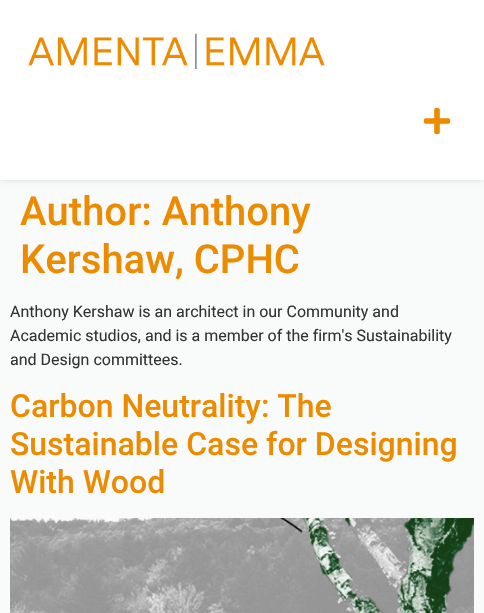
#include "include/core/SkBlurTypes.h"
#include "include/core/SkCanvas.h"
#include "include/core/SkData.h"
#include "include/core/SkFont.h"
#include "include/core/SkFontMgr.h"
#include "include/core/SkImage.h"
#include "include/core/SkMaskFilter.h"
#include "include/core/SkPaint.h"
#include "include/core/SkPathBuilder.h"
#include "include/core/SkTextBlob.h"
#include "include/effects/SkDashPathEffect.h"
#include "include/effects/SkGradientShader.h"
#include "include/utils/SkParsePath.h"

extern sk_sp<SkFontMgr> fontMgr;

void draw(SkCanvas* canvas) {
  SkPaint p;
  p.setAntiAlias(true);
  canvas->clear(SkColorSetRGB(249, 250, 250));
  p.setColor(SkColorSetARGB(33, 0, 0, 0));
  p.setMaskFilter(SkMaskFilter::MakeBlur(kNormal_SkBlurStyle, 2.5f));
  canvas->drawRect(SkRect::MakeLTRB(0, 0, 484, 180), p);
  p.setMaskFilter(nullptr);
  p.setColor(SK_ColorWHITE);
  canvas->drawRect(SkRect::MakeLTRB(0, 0, 484, 180), p);
  canvas->drawImageRect(SkImages::DeferredFromEncodedData(SkData::MakeFromFileName("images/1.png")), SkRect::MakeLTRB(28, 33, 325, 69), SkSamplingOptions());
  canvas->drawImageRect(SkImages::DeferredFromEncodedData(SkData::MakeFromFileName("images/2.png")), SkRect::MakeLTRB(423, 107, 451, 135), SkSamplingOptions());
  canvas->drawImageRect(SkImages::DeferredFromEncodedData(SkData::MakeFromFileName("images/3.png")), SkRect::MakeLTRB(10, 518, 474, 613), SkSamplingOptions());
  SkFont font1(fontMgr->matchFamilyStyle("Roboto", SkFontStyle(500, SkFontStyle::kNormal_Width, SkFontStyle::kUpright_Slant)), 40);
  font1.setSubpixel(true);
  p.setColor(SkColorSetRGB(237, 139, 0));
  canvas->drawString("Author: Anthony", 20, 225, font1, p);
  canvas->drawString("Kershaw, CPHC", 20, 273, font1, p);
  SkFont font2(fontMgr->matchFamilyStyle("Roboto", SkFontStyle::Normal()), 16);
  font2.setSubpixel(true);
  p.setColor(SkColorSetRGB(51, 51, 51));
  canvas->drawString("Anthony Kershaw is an architect in our Community and", 10, 317, font2, p);
  canvas->drawString("Academic studios, and is a member of the firm's Sustainability", 10, 341, font2, p);
  canvas->drawString("and Design committees.", 10, 365, font2, p);
  SkFont font3(fontMgr->matchFamilyStyle("Roboto", SkFontStyle(500, SkFontStyle::kNormal_Width, SkFontStyle::kUpright_Slant)), 32);
  font3.setSubpixel(true);
  p.setColor(SkColorSetRGB(237, 139, 0));
  canvas->drawString("Carbon Neutrality: The", 10, 417, font3, p);
  canvas->drawString("Sustainable Case for Designing", 10, 455, font3, p);
  canvas->drawString("With Wood", 10, 493, font3, p);
}
